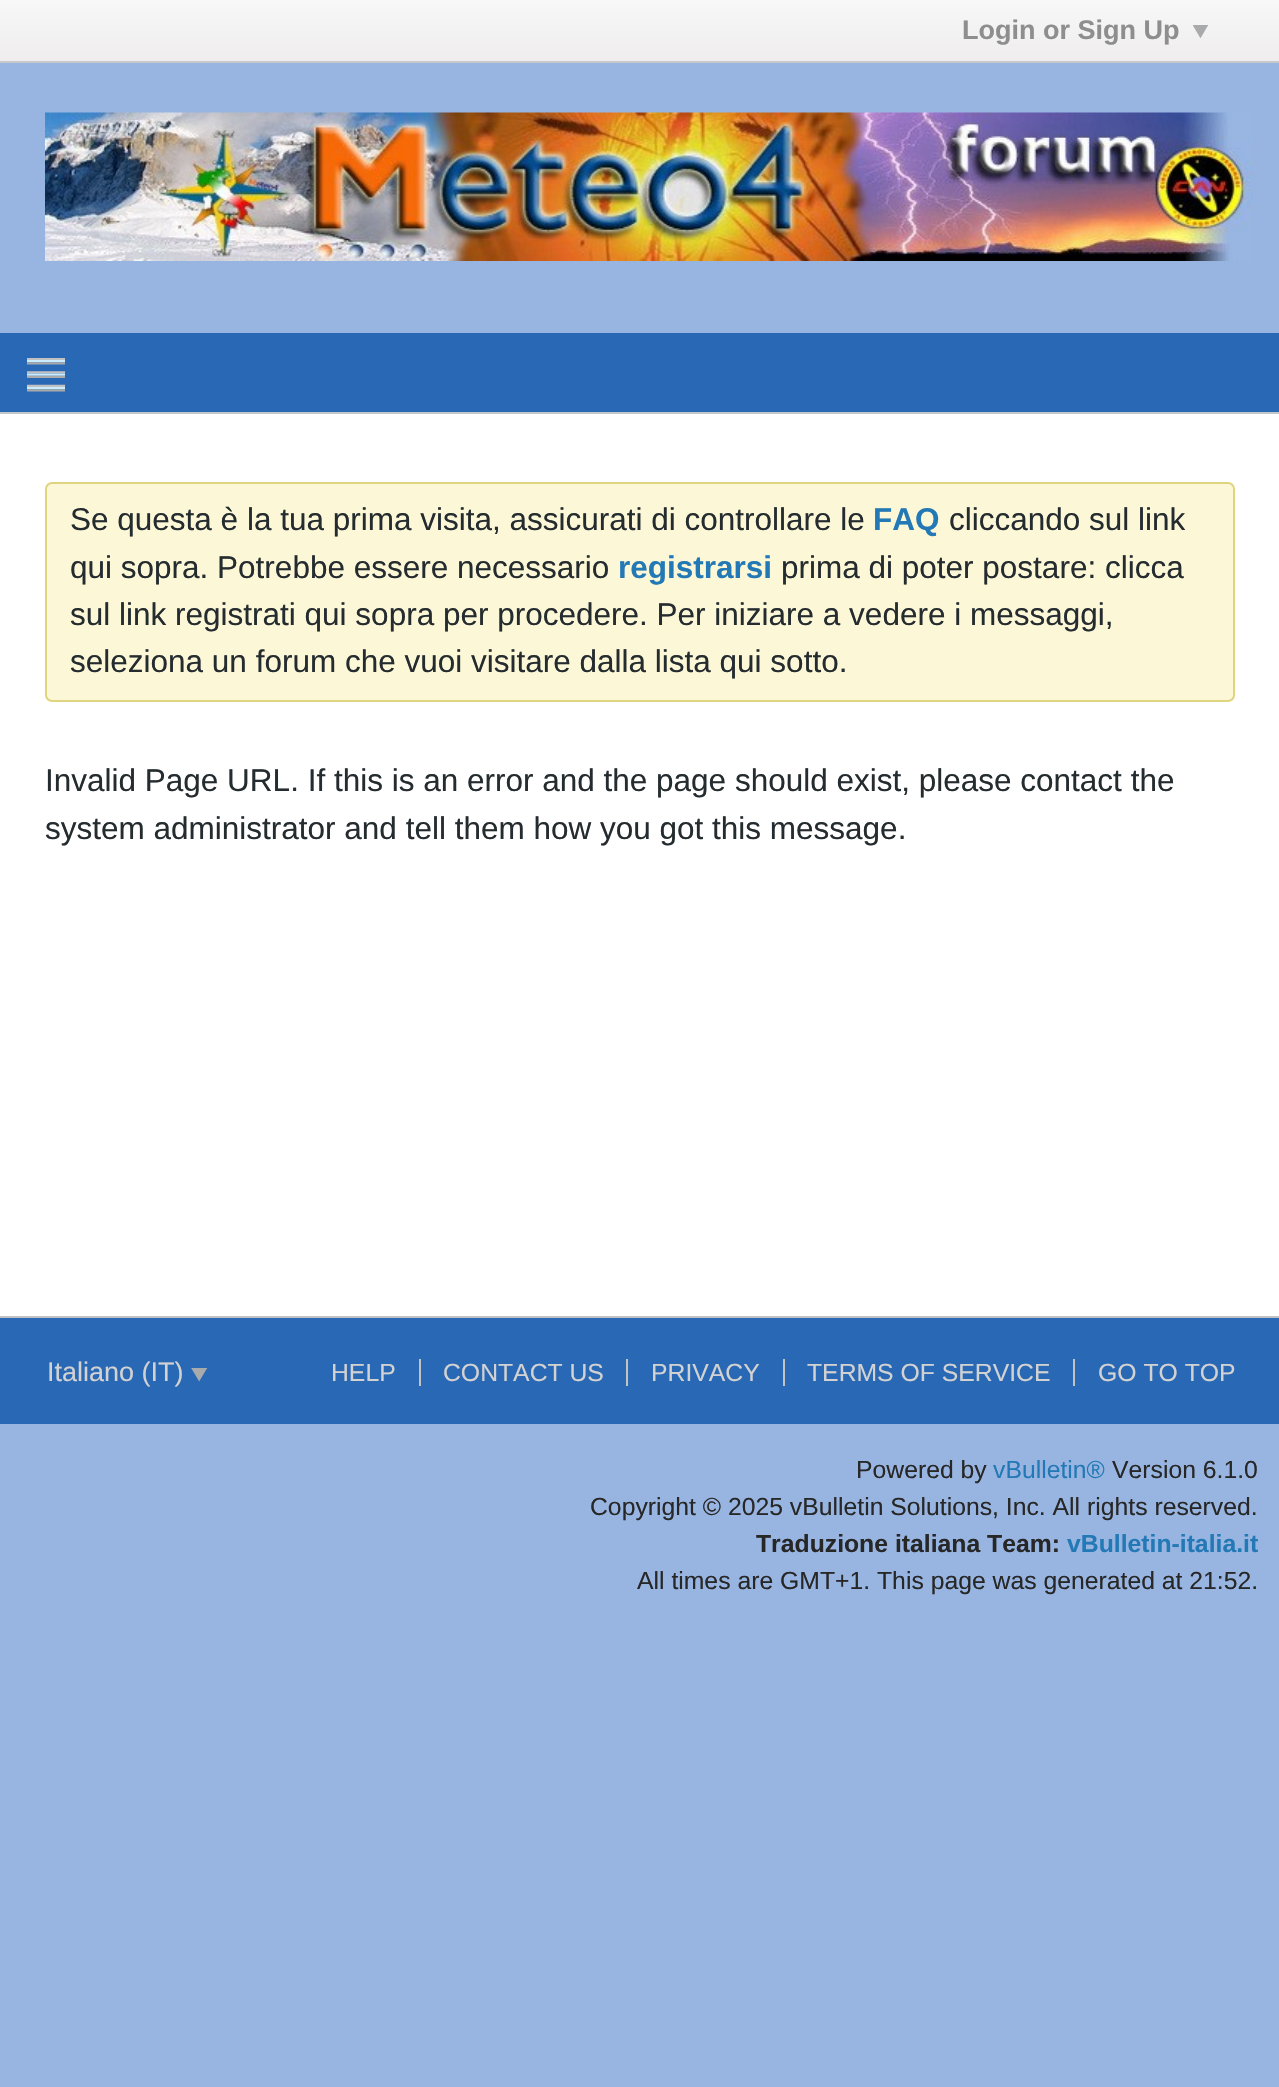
#include "include/core/SkBlurTypes.h"
#include "include/core/SkCanvas.h"
#include "include/core/SkData.h"
#include "include/core/SkFont.h"
#include "include/core/SkFontMgr.h"
#include "include/core/SkImage.h"
#include "include/core/SkMaskFilter.h"
#include "include/core/SkPaint.h"
#include "include/core/SkPathBuilder.h"
#include "include/core/SkTextBlob.h"
#include "include/effects/SkDashPathEffect.h"
#include "include/effects/SkGradientShader.h"
#include "include/utils/SkParsePath.h"

extern sk_sp<SkFontMgr> fontMgr;

void draw(SkCanvas* canvas) {
  SkPaint p;
  p.setAntiAlias(true);
  canvas->clear(SkColorSetRGB(152, 181, 226));
  {
    const SkColor colors[] = {SkColorSetRGB(248, 248, 248), SkColorSetRGB(239, 237, 238)};
    const float stops[] = {0, 1};
    const SkPoint ends[] = {{640, 0}, {640, 61}};
    p.setShader(SkGradientShader::MakeLinear(ends, colors, stops, 2, SkTileMode::kClamp));
    p.setAlpha(255);
  }
  canvas->drawRect(SkRect::MakeLTRB(0, 0, 1279, 61), p);
  p.setShader(nullptr);
  p.setColor(SkColorSetRGB(199, 200, 201));
  canvas->drawRect(SkRect::MakeLTRB(0, 61, 1279, 63), p);
  canvas->drawImageRect(SkImages::DeferredFromEncodedData(SkData::MakeFromFileName("images/1.png")), SkRect::MakeLTRB(1193, 25, 1208, 38), SkSamplingOptions());
  canvas->drawImageRect(SkImages::DeferredFromEncodedData(SkData::MakeFromFileName("images/2.png")), SkRect::MakeLTRB(45, 112, 1253, 261), SkSamplingOptions());
  p.setColor(SkColorSetRGB(41, 104, 181));
  canvas->drawRect(SkRect::MakeLTRB(0, 333, 1279, 412), p);
  p.setColor(SkColorSetRGB(196, 199, 200));
  canvas->drawRect(SkRect::MakeLTRB(0, 412, 1279, 414), p);
  canvas->drawImageRect(SkImages::DeferredFromEncodedData(SkData::MakeFromFileName("images/3.png")), SkRect::MakeLTRB(27, 358, 65, 392), SkSamplingOptions());
  p.setColor(SK_ColorWHITE);
  canvas->drawRect(SkRect::MakeLTRB(0, 414, 1279, 1316), p);
  p.setColor(SkColorSetRGB(252, 247, 215));
  canvas->drawRoundRect(SkRect::MakeLTRB(46, 483, 1234, 701), 6, 6, p);
  p.setStyle(SkPaint::kStroke_Style);
  p.setStrokeWidth(2);
  p.setColor(SkColorSetRGB(225, 212, 126));
  canvas->drawRoundRect(SkRect::MakeLTRB(46, 483, 1234, 701), 6, 6, p);
  p.setStyle(SkPaint::kFill_Style);
  p.setColor(SkColorSetRGB(41, 104, 181));
  canvas->drawRect(SkRect::MakeLTRB(0, 1318, 1279, 1424), p);
  p.setColor(SkColorSetRGB(194, 194, 194));
  canvas->drawRect(SkRect::MakeLTRB(0, 1316, 1279, 1318), p);
  canvas->drawImageRect(SkImages::DeferredFromEncodedData(SkData::MakeFromFileName("images/4.png")), SkRect::MakeLTRB(191, 1368, 207, 1382), SkSamplingOptions());
  canvas->drawRect(SkRect::MakeLTRB(419, 1359, 421, 1386), p);
  canvas->drawRect(SkRect::MakeLTRB(626, 1359, 628, 1386), p);
  canvas->drawRect(SkRect::MakeLTRB(783, 1359, 785, 1386), p);
  canvas->drawRect(SkRect::MakeLTRB(1073, 1359, 1075, 1386), p);
  SkFont font1(fontMgr->matchFamilyStyle("Liberation Sans", SkFontStyle::Bold()), 27);
  font1.setSubpixel(true);
  p.setColor(SkColorSetRGB(142, 142, 142));
  canvas->drawString("Login or Sign Up", 962, 39, font1, p);
  SkFont font2(fontMgr->matchFamilyStyle("Liberation Sans", SkFontStyle::Normal()), 31.5f);
  font2.setSubpixel(true);
  p.setColor(SkColorSetRGB(37, 44, 47));
  canvas->drawString("Se questa è la tua prima visita, assicurati di controllare le", 70, 530, font2, p);
  SkFont font3(fontMgr->matchFamilyStyle("Liberation Sans", SkFontStyle::Bold()), 31.5f);
  font3.setSubpixel(true);
  p.setColor(SkColorSetRGB(35, 121, 181));
  canvas->drawString("FAQ", 873, 530, font3, p);
  p.setColor(SkColorSetRGB(37, 44, 47));
  canvas->drawString("cliccando sul link", 949, 530, font2, p);
  canvas->drawString("qui sopra. Potrebbe essere necessario", 70, 578, font2, p);
  p.setColor(SkColorSetRGB(35, 121, 181));
  canvas->drawString("registrarsi", 618, 578, font3, p);
  p.setColor(SkColorSetRGB(37, 44, 47));
  canvas->drawString("prima di poter postare: clicca", 781, 578, font2, p);
  canvas->drawString("sul link registrati qui sopra per procedere. Per iniziare a vedere i messaggi,", 70, 625, font2, p);
  canvas->drawString("seleziona un forum che vuoi visitare dalla lista qui sotto.", 70, 672, font2, p);
  canvas->drawString("Invalid Page URL. If this is an error and the page should exist, please contact the", 45, 791, font2, p);
  canvas->drawString("system administrator and tell them how you got this message.", 45, 839, font2, p);
  SkFont font4(fontMgr->matchFamilyStyle("Liberation Sans", SkFontStyle::Normal()), 27);
  font4.setSubpixel(true);
  p.setColor(SkColorSetRGB(210, 210, 210));
  canvas->drawString("Italiano (IT)", 47, 1381, font4, p);
  SkFont font5(fontMgr->matchFamilyStyle("Liberation Sans", SkFontStyle::Normal()), 24.75f);
  font5.setSubpixel(true);
  canvas->drawString("HELP", 331, 1381, font5, p);
  canvas->drawString("CONTACT US", 443, 1381, font5, p);
  canvas->drawString("PRIVACY", 651, 1381, font5, p);
  canvas->drawString("TERMS OF SERVICE", 807, 1381, font5, p);
  canvas->drawString("GO TO TOP", 1098, 1381, font5, p);
  p.setColor(SkColorSetRGB(39, 39, 39));
  canvas->drawString("Powered by", 856, 1478, font5, p);
  p.setColor(SkColorSetRGB(35, 121, 181));
  canvas->drawString("vBulletin®", 993, 1478, font5, p);
  p.setColor(SkColorSetRGB(39, 39, 39));
  canvas->drawString("Version 6.1.0", 1112, 1478, font5, p);
  canvas->drawString("Copyright © 2025 vBulletin Solutions, Inc. All rights reserved.", 590, 1515, font5, p);
  SkFont font6(fontMgr->matchFamilyStyle("Liberation Sans", SkFontStyle::Bold()), 24.75f);
  font6.setSubpixel(true);
  canvas->drawString("Traduzione italiana Team:", 756, 1552, font6, p);
  p.setColor(SkColorSetRGB(35, 121, 181));
  canvas->drawString("vBulletin-italia.it", 1067, 1552, font6, p);
  p.setColor(SkColorSetRGB(39, 39, 39));
  canvas->drawString("All times are GMT+1. This page was generated at 21:52.", 637, 1589, font5, p);
}
